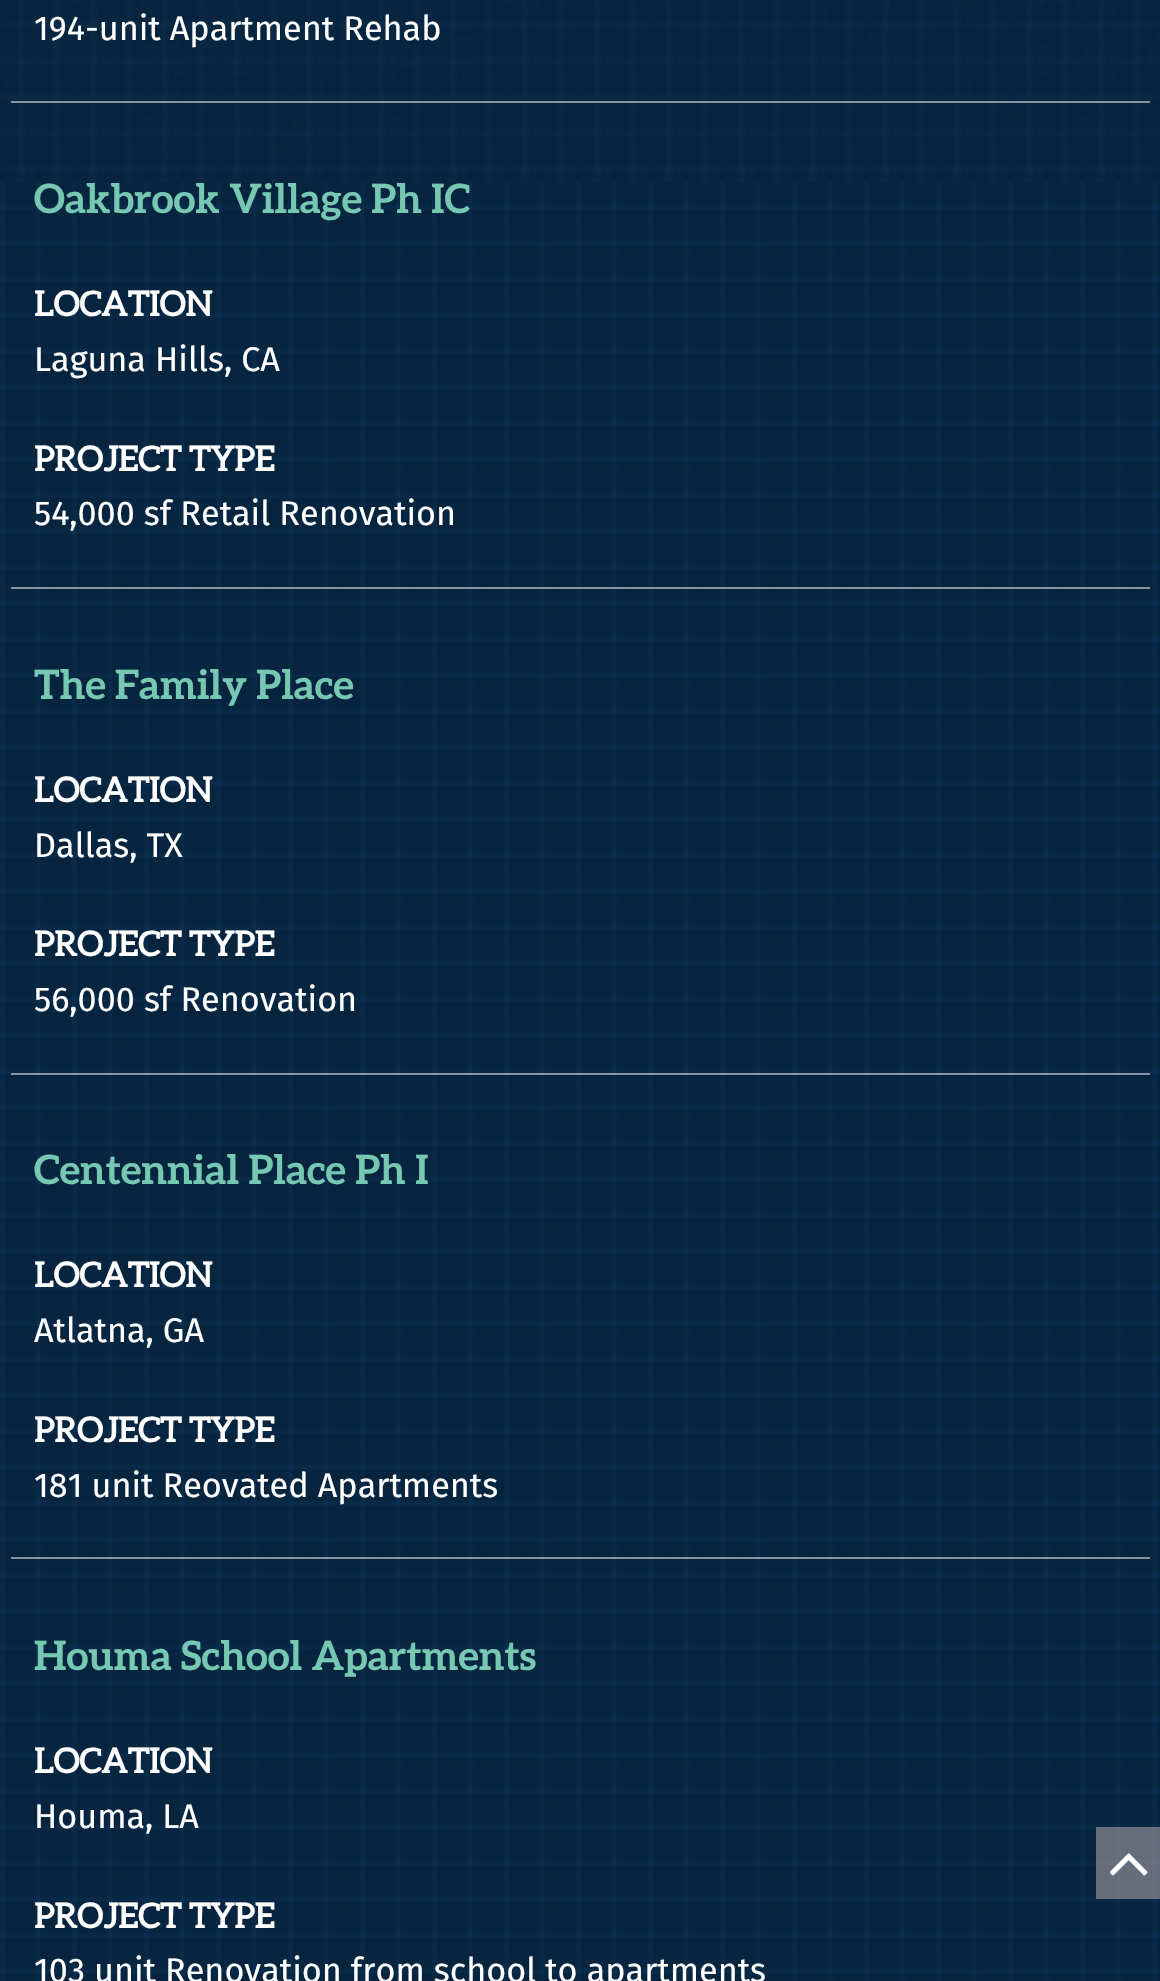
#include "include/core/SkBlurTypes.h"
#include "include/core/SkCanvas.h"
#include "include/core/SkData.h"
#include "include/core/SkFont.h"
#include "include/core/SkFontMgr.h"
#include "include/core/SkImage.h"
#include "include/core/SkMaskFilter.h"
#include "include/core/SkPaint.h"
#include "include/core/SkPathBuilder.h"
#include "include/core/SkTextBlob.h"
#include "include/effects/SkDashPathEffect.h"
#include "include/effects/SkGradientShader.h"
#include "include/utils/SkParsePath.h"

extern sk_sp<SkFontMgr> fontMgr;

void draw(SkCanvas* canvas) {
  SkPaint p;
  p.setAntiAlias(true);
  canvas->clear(SK_ColorWHITE);
  canvas->drawImageRect(SkImages::DeferredFromEncodedData(SkData::MakeFromFileName("images/1.png")), SkRect::MakeLTRB(0, 182, 1160, 1981), SkSamplingOptions());
  canvas->drawImageRect(SkImages::DeferredFromEncodedData(SkData::MakeFromFileName("images/2.png")), SkRect::MakeLTRB(0, 0, 1160, 183), SkSamplingOptions());
  p.setColor(SkColorSetARGB(128, 255, 255, 255));
  canvas->drawRect(SkRect::MakeLTRB(11, 101, 1150, 103), p);
  canvas->drawRect(SkRect::MakeLTRB(11, 587, 1150, 589), p);
  canvas->drawRect(SkRect::MakeLTRB(11, 1073, 1150, 1075), p);
  canvas->drawRect(SkRect::MakeLTRB(11, 1557, 1150, 1559), p);
  p.setColor(SkColorSetARGB(128, 197, 178, 180));
  canvas->drawRect(SkRect::MakeLTRB(1096, 1827, 1160, 1899), p);
  canvas->drawImageRect(SkImages::DeferredFromEncodedData(SkData::MakeFromFileName("images/3.png")), SkRect::MakeLTRB(1109, 1853, 1148, 1876), SkSamplingOptions());
  SkFont font1(fontMgr->matchFamilyStyle("Fira Sans", SkFontStyle::Normal()), 34.2f);
  font1.setSubpixel(true);
  p.setColor(SK_ColorWHITE);
  canvas->drawString("194-unit Apartment Rehab", 34, 40, font1, p);
  SkFont font2(fontMgr->matchFamilyStyle("aleo", SkFontStyle::Bold()), 40.5f);
  font2.setSubpixel(true);
  p.setColor(SkColorSetRGB(118, 200, 179));
  canvas->drawString("Oakbrook Village Ph IC", 34, 213, font2, p);
  SkFont font3(fontMgr->matchFamilyStyle("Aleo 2", SkFontStyle::Bold()), 34.2f);
  font3.setSubpixel(true);
  p.setColor(SK_ColorWHITE);
  canvas->drawString("LOCATION", 34, 316, font3, p);
  canvas->drawString("Laguna Hills, CA", 34, 371, font1, p);
  canvas->drawString("PROJECT TYPE", 34, 471, font3, p);
  canvas->drawString("54,000 sf Retail Renovation", 34, 525, font1, p);
  p.setColor(SkColorSetRGB(118, 200, 179));
  canvas->drawString("The Family Place", 34, 699, font2, p);
  p.setColor(SK_ColorWHITE);
  canvas->drawString("LOCATION", 34, 802, font3, p);
  canvas->drawString("Dallas, TX", 34, 857, font1, p);
  canvas->drawString("PROJECT TYPE", 34, 956, font3, p);
  canvas->drawString("56,000 sf Renovation", 34, 1011, font1, p);
  p.setColor(SkColorSetRGB(118, 200, 179));
  canvas->drawString("Centennial Place Ph I", 34, 1184, font2, p);
  p.setColor(SK_ColorWHITE);
  canvas->drawString("LOCATION", 34, 1287, font3, p);
  canvas->drawString("Atlatna, GA", 34, 1342, font1, p);
  canvas->drawString("PROJECT TYPE", 34, 1442, font3, p);
  canvas->drawString("181 unit Reovated Apartments", 34, 1497, font1, p);
  p.setColor(SkColorSetRGB(118, 200, 179));
  canvas->drawString("Houma School Apartments", 34, 1670, font2, p);
  p.setColor(SK_ColorWHITE);
  canvas->drawString("LOCATION", 34, 1773, font3, p);
  canvas->drawString("Houma, LA", 34, 1828, font1, p);
  canvas->drawString("PROJECT TYPE", 34, 1928, font3, p);
  canvas->drawString("103 unit Renovation from school to apartments", 34, 1982, font1, p);
}
